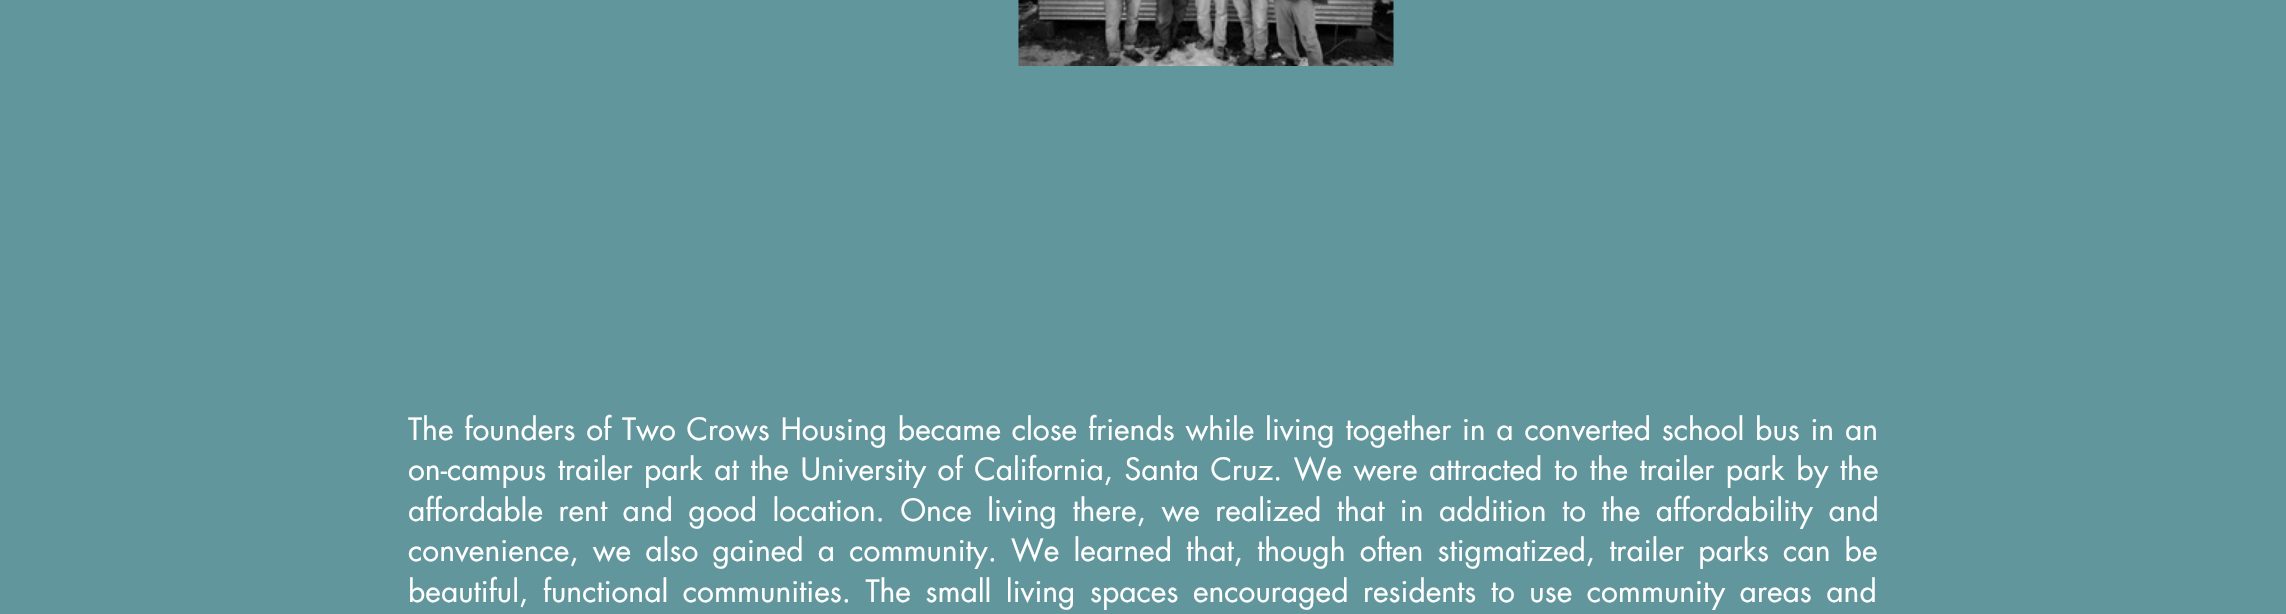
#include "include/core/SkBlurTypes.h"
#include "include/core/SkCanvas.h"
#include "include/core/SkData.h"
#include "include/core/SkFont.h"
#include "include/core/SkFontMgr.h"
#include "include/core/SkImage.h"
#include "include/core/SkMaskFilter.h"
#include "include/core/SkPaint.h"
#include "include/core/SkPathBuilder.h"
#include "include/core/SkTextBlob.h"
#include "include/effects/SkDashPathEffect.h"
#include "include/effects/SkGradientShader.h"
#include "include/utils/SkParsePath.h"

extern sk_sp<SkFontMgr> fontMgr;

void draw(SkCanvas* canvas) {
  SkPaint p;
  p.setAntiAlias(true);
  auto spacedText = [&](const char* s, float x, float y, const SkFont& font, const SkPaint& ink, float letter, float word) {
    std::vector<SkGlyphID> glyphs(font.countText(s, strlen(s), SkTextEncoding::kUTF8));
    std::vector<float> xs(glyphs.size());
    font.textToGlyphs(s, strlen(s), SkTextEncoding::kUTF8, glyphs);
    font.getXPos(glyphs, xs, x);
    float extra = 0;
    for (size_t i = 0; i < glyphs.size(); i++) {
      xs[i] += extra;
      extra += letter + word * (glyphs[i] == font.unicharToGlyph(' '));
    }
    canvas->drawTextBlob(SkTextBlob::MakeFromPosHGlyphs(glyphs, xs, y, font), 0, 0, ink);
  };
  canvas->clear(SkColorSetRGB(96, 150, 156));
  canvas->drawImageRect(SkImages::DeferredFromEncodedData(SkData::MakeFromFileName("images/1.png")), SkRect::MakeLTRB(1018, 0, 1394, 66), SkSamplingOptions());
  SkFont font1(fontMgr->matchFamilyStyle("futura", SkFontStyle::Normal()), 30);
  font1.setSubpixel(true);
  p.setColor(SK_ColorWHITE);
  spacedText("The founders of Two Crows Housing became close friends while living together in a converted school bus in an", 408, 440, font1, p, 0, 1.5f);
  spacedText("on-campus trailer park at the University of California, Santa Cruz. We were attracted to the trailer park by the", 408, 480, font1, p, 0, 2.25f);
  spacedText("affordable rent and good location. Once living there, we realized that in addition to the affordability and", 408, 521, font1, p, 0, 6.25f);
  spacedText("convenience, we also gained a community. We learned that, though often stigmatized, trailer parks can be", 408, 561, font1, p, 0, 4.9f);
  spacedText("beautiful, functional communities. The small living spaces encouraged residents to use community areas and", 408, 602, font1, p, 0, 5.25f);
}
